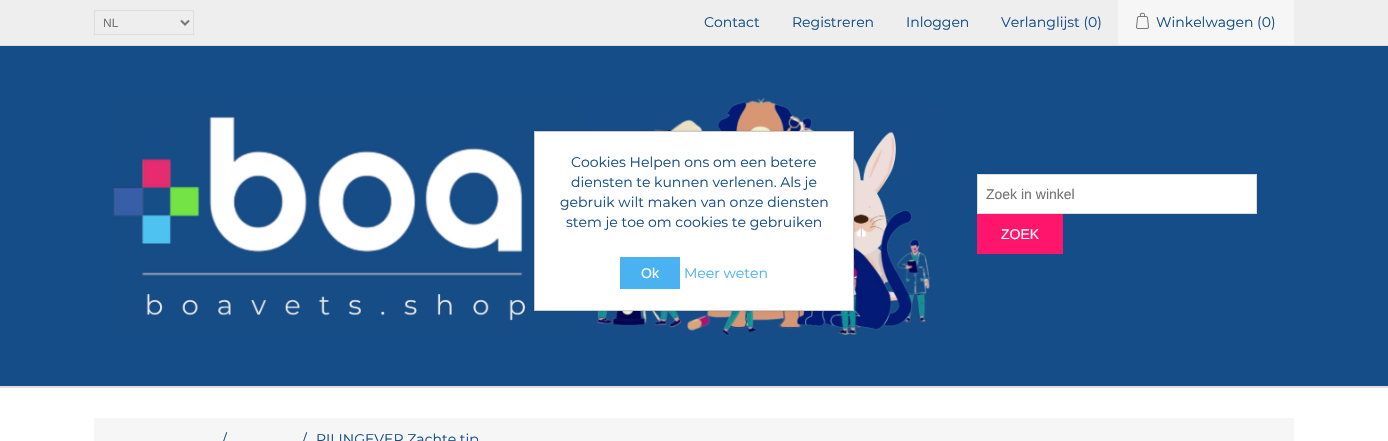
#include "include/core/SkBlurTypes.h"
#include "include/core/SkCanvas.h"
#include "include/core/SkData.h"
#include "include/core/SkFont.h"
#include "include/core/SkFontMgr.h"
#include "include/core/SkImage.h"
#include "include/core/SkMaskFilter.h"
#include "include/core/SkPaint.h"
#include "include/core/SkPathBuilder.h"
#include "include/core/SkTextBlob.h"
#include "include/effects/SkDashPathEffect.h"
#include "include/effects/SkGradientShader.h"
#include "include/utils/SkParsePath.h"

extern sk_sp<SkFontMgr> fontMgr;

void draw(SkCanvas* canvas) {
  SkPaint p;
  p.setAntiAlias(true);
  canvas->clear(SK_ColorWHITE);
  p.setColor(SkColorSetRGB(238, 238, 238));
  canvas->drawRect(SkRect::MakeLTRB(0, 0, 1388, 45), p);
  p.setColor(SkColorSetRGB(221, 221, 221));
  canvas->drawRect(SkRect::MakeLTRB(0, 45, 1388, 46), p);
  p.setStyle(SkPaint::kStroke_Style);
  p.setStrokeWidth(1);
  canvas->drawRect(SkRect::MakeLTRB(94.5f, 10.5f, 193.5f, 34.5f), p);
  p.setStrokeWidth(2);
  p.setColor(SkColorSetRGB(119, 119, 119));
  canvas->drawPath(SkPathBuilder().moveTo(181, 20.5f).lineTo(185, 24.5f).lineTo(189, 20.5f).detach(), p);
  p.setStyle(SkPaint::kFill_Style);
  p.setColor(SkColorSetRGB(246, 246, 246));
  canvas->drawRect(SkRect::MakeLTRB(1118, 0, 1294, 45), p);
  canvas->drawImageRect(SkImages::DeferredFromEncodedData(SkData::MakeFromFileName("images/1.png")), SkRect::MakeLTRB(1136, 12, 1149, 29), SkSamplingOptions());
  p.setColor(SkColorSetRGB(20, 77, 135));
  canvas->drawRect(SkRect::MakeLTRB(0, 46, 1388, 386), p);
  canvas->drawImageRect(SkImages::DeferredFromEncodedData(SkData::MakeFromFileName("images/2.png")), SkRect::MakeLTRB(113, 98, 931, 336), SkSamplingOptions());
  p.setColor(SK_ColorWHITE);
  canvas->drawRect(SkRect::MakeLTRB(977.5f, 174.5f, 1256.5f, 213.5f), p);
  p.setStyle(SkPaint::kStroke_Style);
  p.setStrokeWidth(1);
  p.setColor(SkColorSetRGB(221, 221, 221));
  canvas->drawRect(SkRect::MakeLTRB(977.5f, 174.5f, 1256.5f, 213.5f), p);
  p.setStyle(SkPaint::kFill_Style);
  p.setColor(SkColorSetRGB(255, 21, 107));
  canvas->drawRect(SkRect::MakeLTRB(977, 214, 1063, 254), p);
  p.setColor(SkColorSetRGB(221, 221, 221));
  canvas->drawRect(SkRect::MakeLTRB(0, 386, 1388, 388), p);
  p.setColor(SkColorSetRGB(246, 246, 246));
  canvas->drawRect(SkRect::MakeLTRB(94, 418, 1294, 441), p);
  p.setColor(SkColorSetARGB(38, 0, 0, 0));
  p.setMaskFilter(SkMaskFilter::MakeBlur(kNormal_SkBlurStyle, 1));
  canvas->drawRect(SkRect::MakeLTRB(534, 131, 854, 311), p);
  p.setMaskFilter(nullptr);
  p.setColor(SK_ColorWHITE);
  canvas->drawRect(SkRect::MakeLTRB(534.5f, 131.5f, 853.5f, 310.5f), p);
  p.setStyle(SkPaint::kStroke_Style);
  p.setColor(SkColorSetRGB(204, 204, 204));
  canvas->drawRect(SkRect::MakeLTRB(534.5f, 131.5f, 853.5f, 310.5f), p);
  p.setStyle(SkPaint::kFill_Style);
  p.setColor(SkColorSetRGB(74, 178, 241));
  canvas->drawRect(SkRect::MakeLTRB(620, 257, 680, 289), p);
  SkFont font1(fontMgr->matchFamilyStyle("Liberation Sans", SkFontStyle::Normal()), 12);
  font1.setSubpixel(true);
  p.setColor(SkColorSetRGB(117, 117, 117));
  canvas->drawString("NL", 103, 27, font1, p);
  SkFont font2(fontMgr->matchFamilyStyle("Montserrat", SkFontStyle(100, SkFontStyle::kNormal_Width, SkFontStyle::kUpright_Slant)), 14);
  font2.setSubpixel(true);
  p.setColor(SkColorSetRGB(20, 77, 135));
  canvas->drawString("Contact", 704, 27, font2, p);
  canvas->drawString("Registreren", 792, 27, font2, p);
  canvas->drawString("Inloggen", 906, 27, font2, p);
  canvas->drawString("Verlanglijst (0)", 1001, 27, font2, p);
  canvas->drawString("Winkelwagen (0)", 1156, 27, font2, p);
  SkFont font3(fontMgr->matchFamilyStyle("Liberation Sans", SkFontStyle::Normal()), 14);
  font3.setSubpixel(true);
  p.setColor(SkColorSetRGB(117, 117, 117));
  canvas->drawString("Zoek in winkel", 986, 199, font3, p);
  p.setColor(SK_ColorWHITE);
  canvas->drawString("ZOEK", 1001, 239, font3, p);
  p.setColor(SkColorSetRGB(20, 77, 135));
  canvas->drawString("/", 222, 444, font2, p);
  canvas->drawString("/", 302, 444, font2, p);
  canvas->drawString("PILINGEVER Zachte tip", 316, 444, font2, p);
  canvas->drawString("Cookies Helpen ons om een betere", 571, 167, font2, p);
  canvas->drawString("diensten te kunnen verlenen. Als je", 571, 187, font2, p);
  canvas->drawString("gebruik wilt maken van onze diensten", 560, 207, font2, p);
  canvas->drawString("stem je toe om cookies te gebruiken", 566, 227, font2, p);
  p.setColor(SK_ColorWHITE);
  canvas->drawString("Ok", 641, 278, font3, p);
  p.setColor(SkColorSetRGB(74, 178, 241));
  canvas->drawString("Meer weten", 684, 278, font2, p);
}
